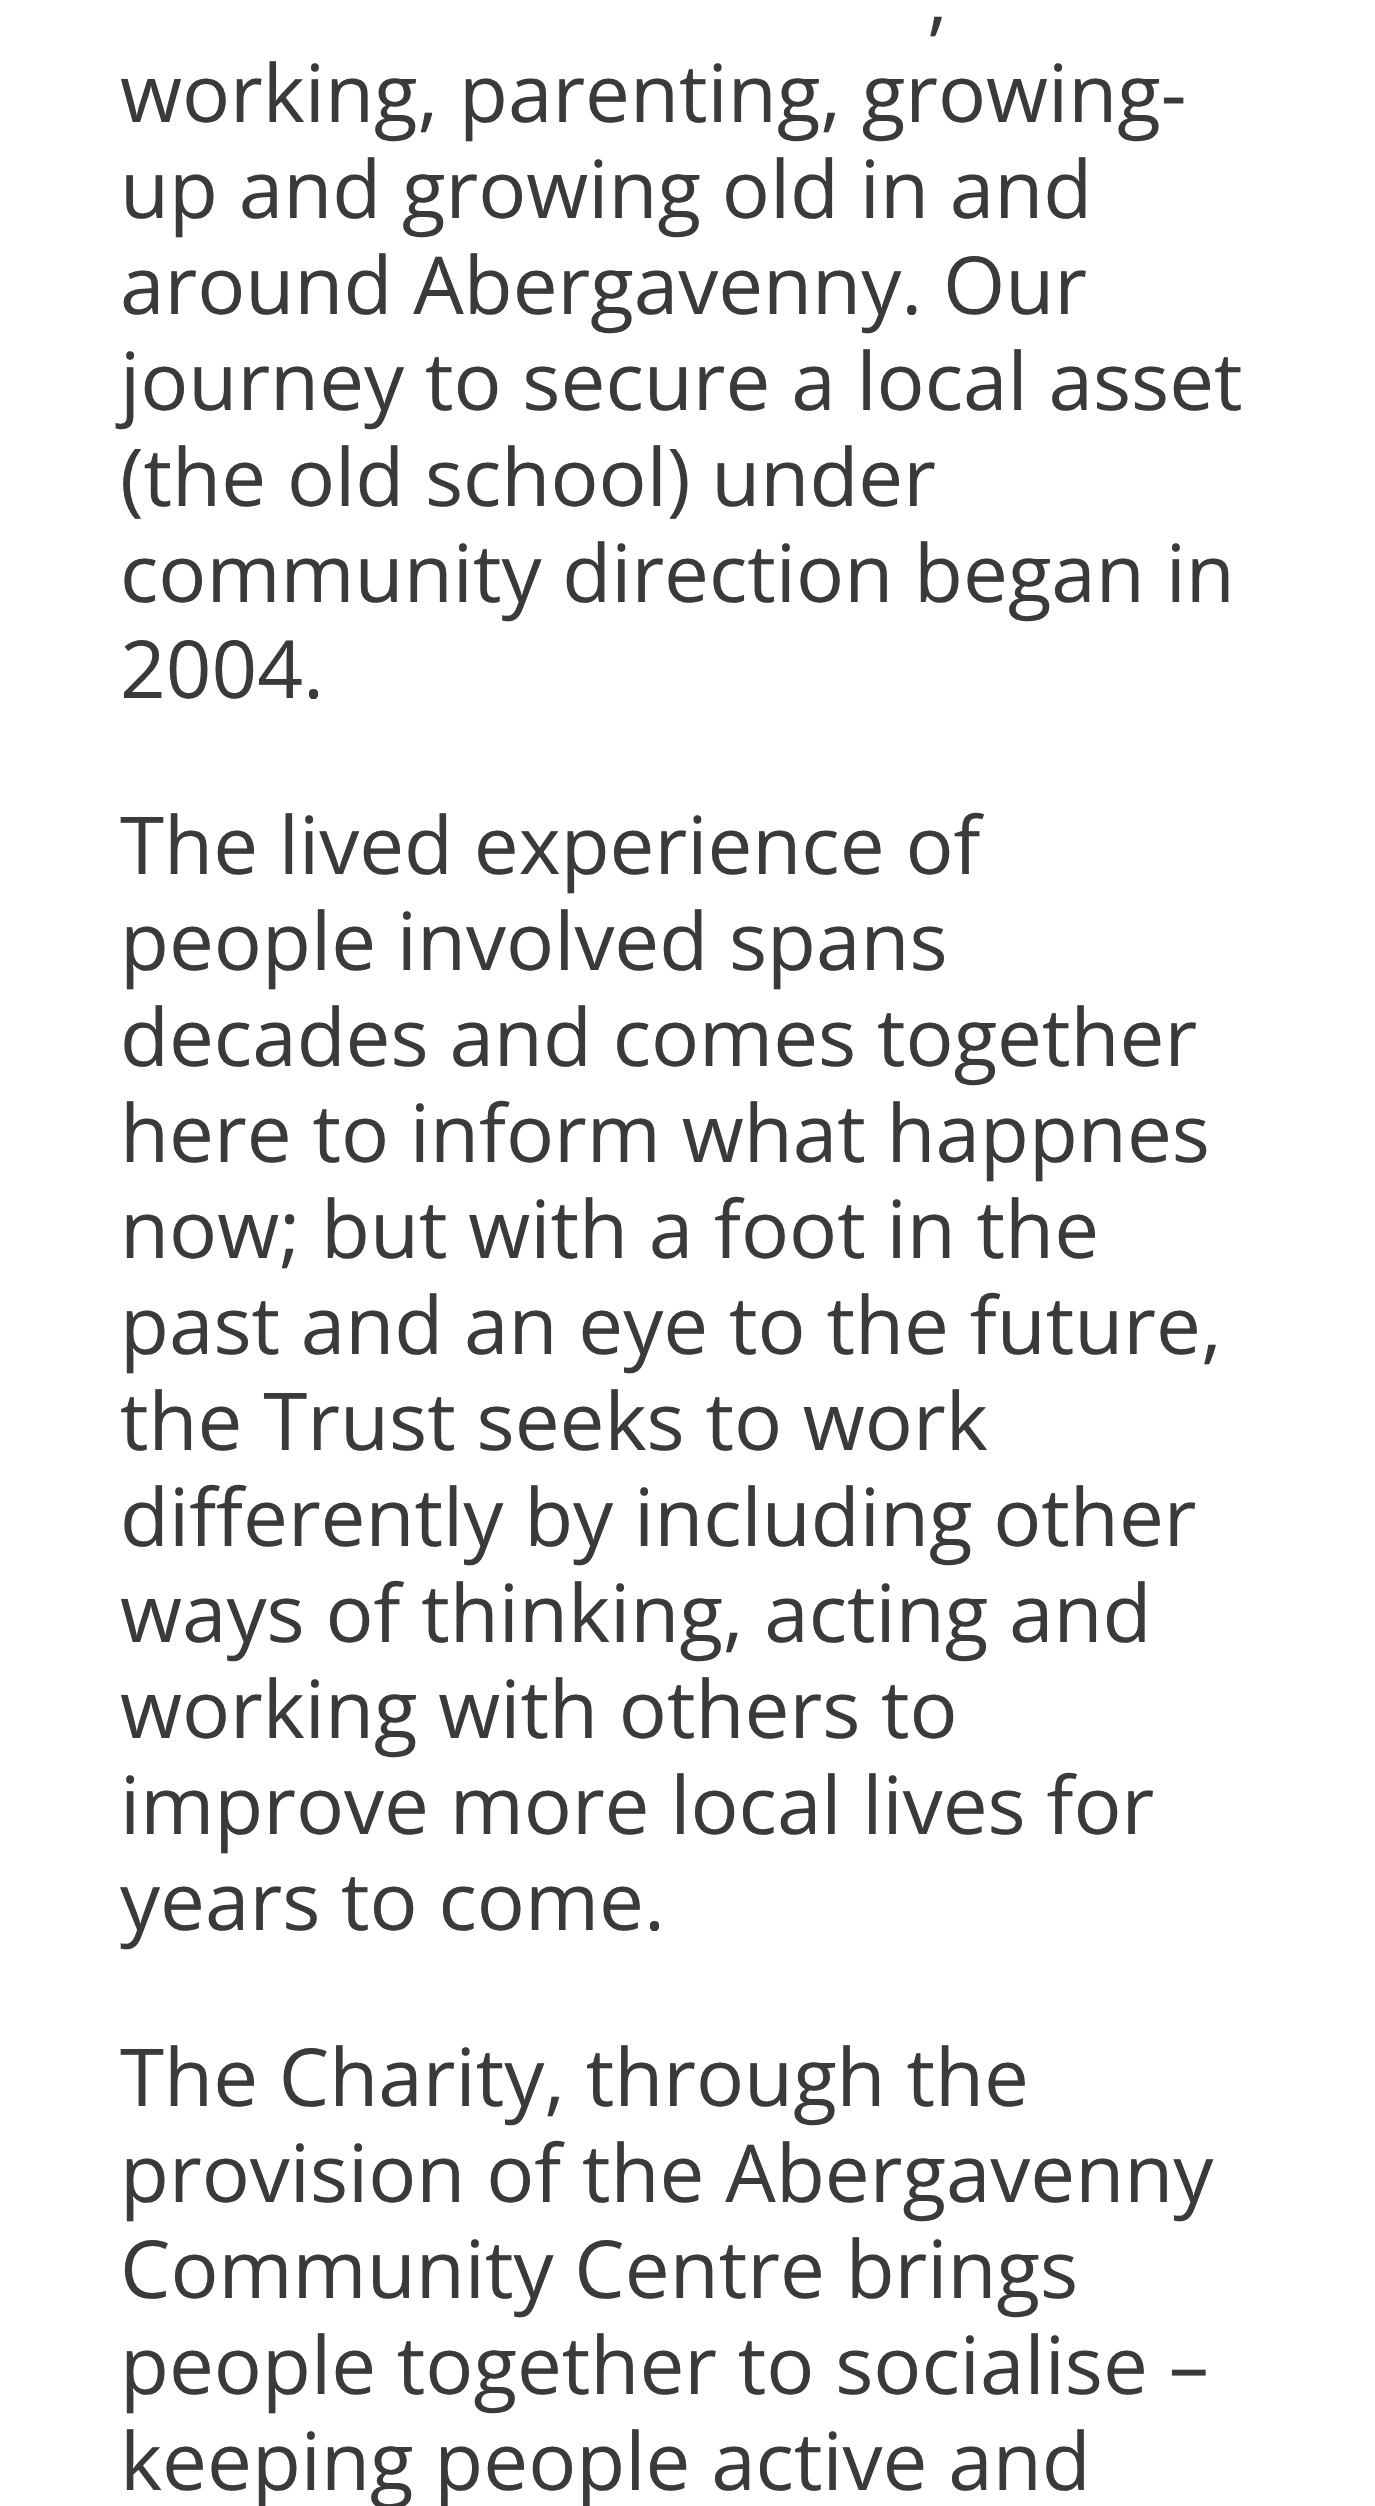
#include "include/core/SkBlurTypes.h"
#include "include/core/SkCanvas.h"
#include "include/core/SkData.h"
#include "include/core/SkFont.h"
#include "include/core/SkFontMgr.h"
#include "include/core/SkImage.h"
#include "include/core/SkMaskFilter.h"
#include "include/core/SkPaint.h"
#include "include/core/SkPathBuilder.h"
#include "include/core/SkTextBlob.h"
#include "include/effects/SkDashPathEffect.h"
#include "include/effects/SkGradientShader.h"
#include "include/utils/SkParsePath.h"

extern sk_sp<SkFontMgr> fontMgr;

void draw(SkCanvas* canvas) {
  SkPaint p;
  p.setAntiAlias(true);
  canvas->clear(SK_ColorWHITE);
  SkFont font1(fontMgr->matchFamilyStyle("Open Sans", SkFontStyle::Normal()), 80);
  font1.setSubpixel(true);
  p.setColor(SkColorSetRGB(58, 58, 58));
  canvas->drawString(",", 927, 26, font1, p);
  canvas->drawString("working, parenting, growing-", 120, 122, font1, p);
  canvas->drawString("up and growing old in and", 120, 218, font1, p);
  canvas->drawString("around Abergavenny. Our", 120, 314, font1, p);
  canvas->drawString("journey to secure a local asset", 120, 410, font1, p);
  canvas->drawString("(the old school) under", 120, 506, font1, p);
  canvas->drawString("community direction began in", 120, 602, font1, p);
  canvas->drawString("2004.", 120, 698, font1, p);
  canvas->drawString("The lived experience of", 120, 874, font1, p);
  canvas->drawString("people involved spans", 120, 970, font1, p);
  canvas->drawString("decades and comes together", 120, 1066, font1, p);
  canvas->drawString("here to inform what happnes", 120, 1162, font1, p);
  canvas->drawString("now; but with a foot in the", 120, 1258, font1, p);
  canvas->drawString("past and an eye to the future,", 120, 1354, font1, p);
  canvas->drawString("the Trust seeks to work", 120, 1450, font1, p);
  canvas->drawString("differently by including other", 120, 1546, font1, p);
  canvas->drawString("ways of thinking, acting and", 120, 1642, font1, p);
  canvas->drawString("working with others to", 120, 1738, font1, p);
  canvas->drawString("improve more local lives for", 120, 1834, font1, p);
  canvas->drawString("years to come.", 120, 1930, font1, p);
  canvas->drawString("The Charity, through the", 120, 2106, font1, p);
  canvas->drawString("provision of the Abergavenny", 120, 2202, font1, p);
  canvas->drawString("Community Centre brings", 120, 2298, font1, p);
  canvas->drawString("people together to socialise –", 120, 2394, font1, p);
  canvas->drawString("keeping people active and", 120, 2490, font1, p);
}
